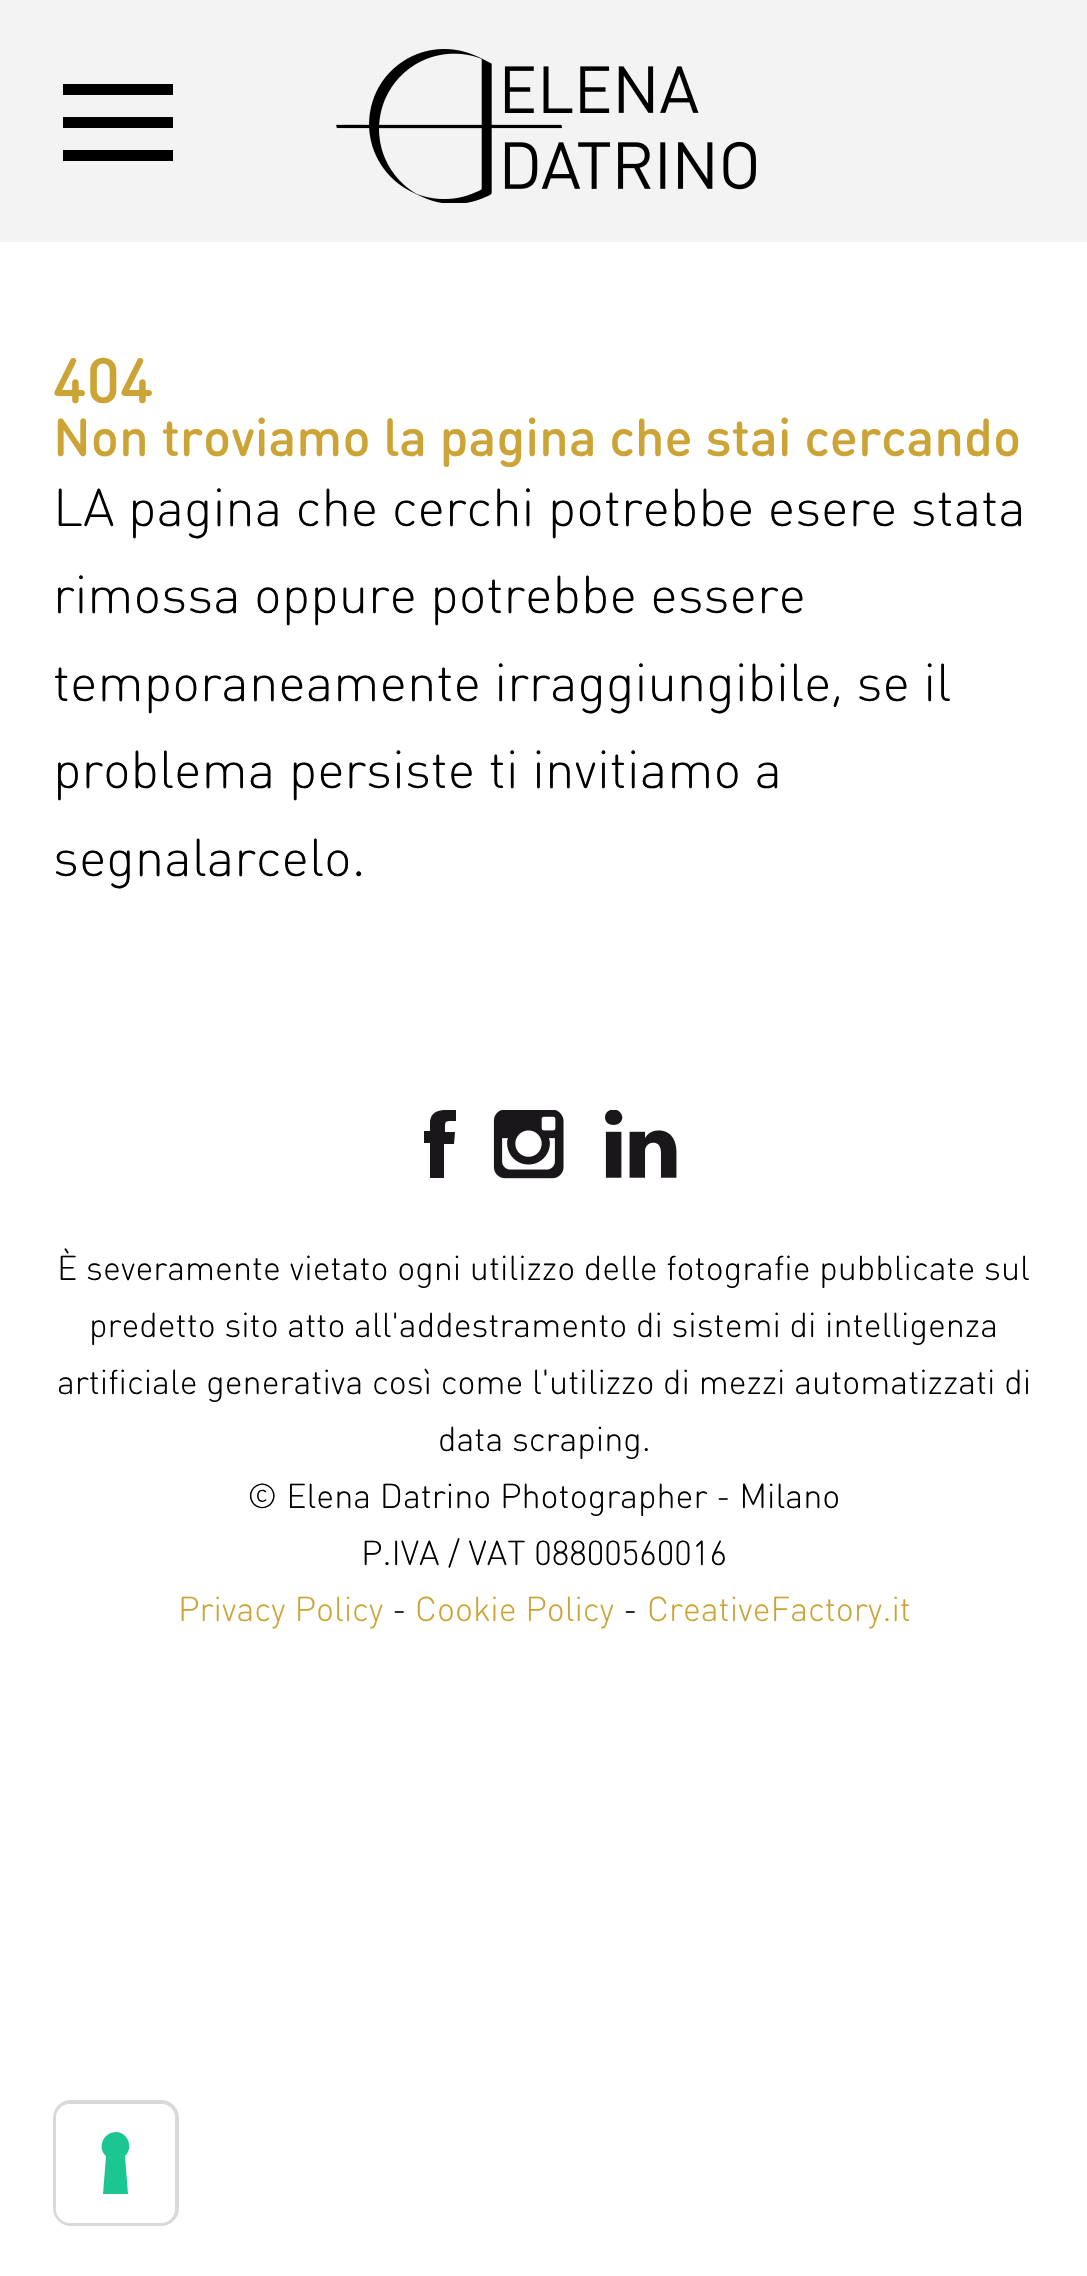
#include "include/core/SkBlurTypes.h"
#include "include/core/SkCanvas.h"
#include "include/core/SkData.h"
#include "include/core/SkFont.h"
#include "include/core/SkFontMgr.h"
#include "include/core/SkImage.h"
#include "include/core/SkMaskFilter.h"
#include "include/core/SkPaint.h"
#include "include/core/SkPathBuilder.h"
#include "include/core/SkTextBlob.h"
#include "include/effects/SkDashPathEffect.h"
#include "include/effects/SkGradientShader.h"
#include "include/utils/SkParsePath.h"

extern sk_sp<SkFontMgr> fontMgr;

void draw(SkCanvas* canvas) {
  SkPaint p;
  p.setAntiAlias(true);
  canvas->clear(SK_ColorWHITE);
  p.setColor(SkColorSetRGB(243, 243, 243));
  canvas->drawRect(SkRect::MakeLTRB(0, 0, 1087, 242), p);
  p.setColor(SK_ColorBLACK);
  canvas->drawPath(SkPathBuilder().moveTo(63, 84).lineTo(63, 95).lineTo(173, 95).lineTo(173, 84).close().moveTo(63, 117).lineTo(63, 128).lineTo(173, 128).lineTo(173, 117).close().moveTo(63, 150).lineTo(63, 161).lineTo(173, 161).lineTo(173, 150).close().detach(), p);
  canvas->drawImageRect(SkImages::DeferredFromEncodedData(SkData::MakeFromFileName("images/1.png")), SkRect::MakeLTRB(336, 49, 756, 203), SkSamplingOptions());
  canvas->save();
  canvas->clipRect(SkRect::MakeLTRB(417, 1110, 462, 1180));
  p.setColor(SkColorSetRGB(26, 23, 27));
  canvas->drawPath(SkPathBuilder().moveTo(455, 1132).lineTo(445, 1132).cubicTo(445, 1120, 444, 1121, 456, 1121).lineTo(456, 1110).cubicTo(445, 1110, 432, 1108, 430, 1121).lineTo(430, 1131).lineTo(424, 1131).lineTo(424, 1143).lineTo(430, 1143).lineTo(430, 1178).lineTo(444, 1178).lineTo(444, 1144).lineTo(454, 1144).close().detach(), p);
  canvas->restore();
  canvas->drawImageRect(SkImages::DeferredFromEncodedData(SkData::MakeFromFileName("images/2.png")), SkRect::MakeLTRB(493, 1110, 564, 1179), SkSamplingOptions());
  canvas->drawImageRect(SkImages::DeferredFromEncodedData(SkData::MakeFromFileName("images/3.png")), SkRect::MakeLTRB(605, 1110, 677, 1178), SkSamplingOptions());
  p.setStyle(SkPaint::kStroke_Style);
  p.setStrokeWidth(4);
  p.setColor(SkColorSetRGB(217, 217, 217));
  canvas->drawRoundRect(SkRect::MakeLTRB(55, 2102, 177, 2224), 16, 16, p);
  p.setStyle(SkPaint::kFill_Style);
  p.setColor(SK_ColorWHITE);
  canvas->drawRoundRect(SkRect::MakeLTRB(56, 2104, 175, 2223), 14, 14, p);
  p.setColor(SkColorSetRGB(28, 198, 145));
  canvas->drawPath(SkPathBuilder(SkPathFillType::kEvenOdd).moveTo(116, 2132).cubicTo(128, 2132, 134, 2148, 125, 2156).lineTo(128, 2194).lineTo(103, 2194).lineTo(106, 2156).cubicTo(97, 2148, 103, 2132, 116, 2132).close().detach(), p);
  SkFont font1(fontMgr->matchFamilyStyle("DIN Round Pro", SkFontStyle(500, SkFontStyle::kNormal_Width, SkFontStyle::kUpright_Slant)), 63);
  font1.setSubpixel(true);
  p.setColor(SkColorSetRGB(204, 163, 53));
  canvas->drawString("404", 53, 403, font1, p);
  SkFont font2(fontMgr->matchFamilyStyle("DIN Round Pro", SkFontStyle(500, SkFontStyle::kNormal_Width, SkFontStyle::kUpright_Slant)), 52.5f);
  font2.setSubpixel(true);
  canvas->drawString("Non troviamo la pagina che stai cercando", 53, 456, font2, p);
  SkFont font3(fontMgr->matchFamilyStyle("DIN Round Pro", SkFontStyle(300, SkFontStyle::kNormal_Width, SkFontStyle::kUpright_Slant)), 52.5f);
  font3.setSubpixel(true);
  p.setColor(SK_ColorBLACK);
  canvas->drawString("LA pagina che cerchi potrebbe esere stata", 53, 526, font3, p);
  canvas->drawString("rimossa oppure potrebbe essere", 53, 613, font3, p);
  canvas->drawString("temporaneamente irraggiungibile, se il", 53, 701, font3, p);
  canvas->drawString("problema persiste ti invitiamo a", 53, 788, font3, p);
  canvas->drawString("segnalarcelo.", 53, 876, font3, p);
  SkFont font4(fontMgr->matchFamilyStyle("DIN Round Pro", SkFontStyle(300, SkFontStyle::kNormal_Width, SkFontStyle::kUpright_Slant)), 34.1f);
  font4.setSubpixel(true);
  canvas->drawString("È severamente vietato ogni utilizzo delle fotografie pubblicate sul", 57, 1280, font4, p);
  canvas->drawString("predetto sito atto all'addestramento di sistemi di intelligenza", 89, 1337, font4, p);
  canvas->drawString("artificiale generativa così come l'utilizzo di mezzi automatizzati di", 57, 1394, font4, p);
  canvas->drawString("data scraping.", 438, 1451, font4, p);
  canvas->drawString("© Elena Datrino Photographer - Milano", 247, 1508, font4, p);
  canvas->drawString("P.IVA / VAT 08800560016", 361, 1565, font4, p);
  p.setColor(SkColorSetRGB(204, 163, 53));
  canvas->drawString("Privacy Policy", 178, 1621, font4, p);
  p.setColor(SK_ColorBLACK);
  canvas->drawString("-", 392, 1621, font4, p);
  p.setColor(SkColorSetRGB(204, 163, 53));
  canvas->drawString("Cookie Policy", 415, 1621, font4, p);
  p.setColor(SK_ColorBLACK);
  canvas->drawString("-", 623, 1621, font4, p);
  p.setColor(SkColorSetRGB(204, 163, 53));
  canvas->drawString("CreativeFactory.it", 647, 1621, font4, p);
}
